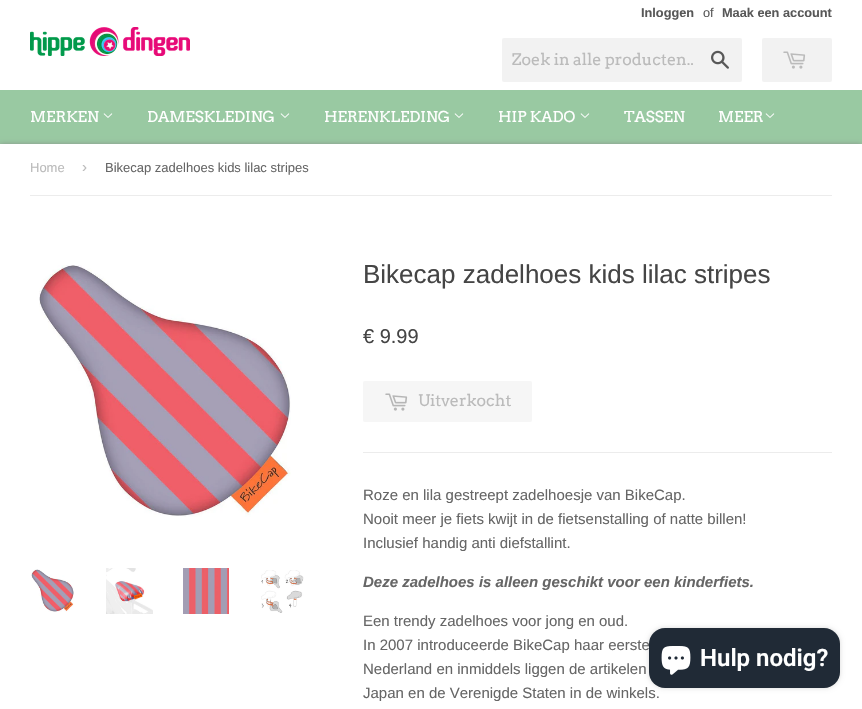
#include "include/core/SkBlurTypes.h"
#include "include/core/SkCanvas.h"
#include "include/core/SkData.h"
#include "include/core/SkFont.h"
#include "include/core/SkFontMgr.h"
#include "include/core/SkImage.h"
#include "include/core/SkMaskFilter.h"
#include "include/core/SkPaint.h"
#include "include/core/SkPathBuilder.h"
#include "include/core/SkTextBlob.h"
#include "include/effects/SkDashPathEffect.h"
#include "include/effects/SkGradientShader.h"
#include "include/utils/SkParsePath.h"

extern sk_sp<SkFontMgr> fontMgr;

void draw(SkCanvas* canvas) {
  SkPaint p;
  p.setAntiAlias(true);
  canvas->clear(SK_ColorWHITE);
  canvas->drawImageRect(SkImages::DeferredFromEncodedData(SkData::MakeFromFileName("images/1.png")), SkRect::MakeLTRB(30, 27, 190, 56), SkSamplingOptions());
  p.setColor(SkColorSetRGB(242, 242, 242));
  canvas->drawRoundRect(SkRect::MakeLTRB(502, 38, 742, 82), 2, 2, p);
  canvas->drawImageRect(SkImages::DeferredFromEncodedData(SkData::MakeFromFileName("images/2.png")), SkRect::MakeLTRB(711, 50, 729, 69), SkSamplingOptions());
  canvas->drawRoundRect(SkRect::MakeLTRB(762, 38, 832, 82), 2, 2, p);
  canvas->drawImageRect(SkImages::DeferredFromEncodedData(SkData::MakeFromFileName("images/3.png")), SkRect::MakeLTRB(783, 51, 806, 69), SkSamplingOptions());
  p.setColor(SkColorSetRGB(153, 201, 162));
  canvas->drawRect(SkRect::MakeLTRB(0, 90, 862, 144), p);
  canvas->drawImageRect(SkImages::DeferredFromEncodedData(SkData::MakeFromFileName("images/4.png")), SkRect::MakeLTRB(103, 113, 113, 118), SkSamplingOptions());
  canvas->drawImageRect(SkImages::DeferredFromEncodedData(SkData::MakeFromFileName("images/4.png")), SkRect::MakeLTRB(280, 113, 290, 118), SkSamplingOptions());
  canvas->drawImageRect(SkImages::DeferredFromEncodedData(SkData::MakeFromFileName("images/4.png")), SkRect::MakeLTRB(454, 113, 464, 118), SkSamplingOptions());
  canvas->drawImageRect(SkImages::DeferredFromEncodedData(SkData::MakeFromFileName("images/4.png")), SkRect::MakeLTRB(580, 113, 590, 118), SkSamplingOptions());
  canvas->drawImageRect(SkImages::DeferredFromEncodedData(SkData::MakeFromFileName("images/4.png")), SkRect::MakeLTRB(765, 113, 775, 118), SkSamplingOptions());
  p.setColor(SkColorSetRGB(130, 130, 130));
  p.setMaskFilter(SkMaskFilter::MakeBlur(kNormal_SkBlurStyle, 3));
  canvas->drawRect(SkRect::MakeLTRB(0, 145, 862, 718), p);
  p.setMaskFilter(nullptr);
  p.setColor(SK_ColorWHITE);
  canvas->drawRect(SkRect::MakeLTRB(0, 144, 862, 709), p);
  p.setColor(SkColorSetRGB(236, 236, 236));
  canvas->drawRect(SkRect::MakeLTRB(30, 195, 832, 196), p);
  canvas->drawImageRect(SkImages::DeferredFromEncodedData(SkData::MakeFromFileName("images/5.png")), SkRect::MakeLTRB(39, 265, 291, 517), SkSamplingOptions());
  canvas->drawImageRect(SkImages::DeferredFromEncodedData(SkData::MakeFromFileName("images/6.png")), SkRect::MakeLTRB(31, 569, 74, 612), SkSamplingOptions());
  canvas->drawImageRect(SkImages::DeferredFromEncodedData(SkData::MakeFromFileName("images/7.png")), SkRect::MakeLTRB(106, 568, 153, 614), SkSamplingOptions());
  canvas->drawImageRect(SkImages::DeferredFromEncodedData(SkData::MakeFromFileName("images/8.png")), SkRect::MakeLTRB(183, 568, 229, 614), SkSamplingOptions());
  canvas->drawImageRect(SkImages::DeferredFromEncodedData(SkData::MakeFromFileName("images/9.png")), SkRect::MakeLTRB(261, 570, 304, 613), SkSamplingOptions());
  p.setColor(SkColorSetRGB(246, 246, 246));
  canvas->drawRoundRect(SkRect::MakeLTRB(363, 381, 532, 422), 2, 2, p);
  canvas->drawImageRect(SkImages::DeferredFromEncodedData(SkData::MakeFromFileName("images/10.png")), SkRect::MakeLTRB(385, 393, 408, 411), SkSamplingOptions());
  p.setColor(SkColorSetRGB(236, 236, 236));
  canvas->drawRect(SkRect::MakeLTRB(363, 452, 832, 453), p);
  p.setColor(SkColorSetARGB(38, 0, 0, 0));
  p.setMaskFilter(SkMaskFilter::MakeBlur(kNormal_SkBlurStyle, 2.5f));
  canvas->drawRoundRect(SkRect::MakeLTRB(649, 628, 840, 688), 16, 16, p);
  p.setMaskFilter(nullptr);
  SkFont font1(fontMgr->matchFamilyStyle("Liberation Sans", SkFontStyle::Bold()), 12.75f);
  font1.setSubpixel(true);
  p.setColor(SkColorSetRGB(88, 88, 88));
  canvas->drawString("Inloggen", 641, 17, font1, p);
  SkFont font2(fontMgr->matchFamilyStyle("Liberation Sans", SkFontStyle::Normal()), 12.75f);
  font2.setSubpixel(true);
  canvas->drawString("of", 703, 17, font2, p);
  canvas->drawString("Maak een account", 722, 17, font1, p);
  SkFont font3(fontMgr->matchFamilyStyle("Arvo", SkFontStyle::Normal()), 16);
  font3.setSubpixel(true);
  p.setColor(SkColorSetRGB(187, 187, 187));
  canvas->drawString("Zoek in alle producten..", 512, 65, font3, p);
  SkFont font4(fontMgr->matchFamilyStyle("Arvo", SkFontStyle::Normal()), 15);
  font4.setSubpixel(true);
  p.setColor(SK_ColorWHITE);
  canvas->drawString("MERKEN", 30, 122, font4, p);
  canvas->drawString("DAMESKLEDING", 147, 122, font4, p);
  canvas->drawString("HERENKLEDING", 324, 122, font4, p);
  canvas->drawString("HIP KADO", 498, 122, font4, p);
  canvas->drawString("TASSEN", 624, 122, font4, p);
  canvas->drawString("MEER", 718, 122, font4, p);
  SkFont font5(fontMgr->matchFamilyStyle("Liberation Sans", SkFontStyle::Normal()), 13);
  font5.setSubpixel(true);
  p.setColor(SkColorSetRGB(187, 187, 187));
  canvas->drawString("Home", 30, 172, font5, p);
  SkFont font6(fontMgr->matchFamilyStyle("Liberation Sans", SkFontStyle::Normal()), 15);
  font6.setSubpixel(true);
  canvas->drawString("›", 82, 172, font6, p);
  p.setColor(SkColorSetRGB(102, 102, 102));
  canvas->drawString("Bikecap zadelhoes kids lilac stripes", 105, 172, font5, p);
  SkFont font7(fontMgr->matchFamilyStyle("Liberation Sans", SkFontStyle::Normal()), 26);
  font7.setSubpixel(true);
  p.setColor(SkColorSetRGB(69, 69, 69));
  canvas->drawString("Bikecap zadelhoes kids lilac stripes", 363, 283, font7, p);
  SkFont font8(fontMgr->matchFamilyStyle("Liberation Sans", SkFontStyle::Normal()), 20);
  font8.setSubpixel(true);
  canvas->drawString("€ 9.99", 363, 343, font8, p);
  p.setColor(SkColorSetRGB(187, 187, 187));
  canvas->drawString("Uitverkocht", 418, 406, font3, p);
  p.setColor(SkColorSetRGB(102, 102, 102));
  canvas->drawString("Roze en lila gestreept zadelhoesje van BikeCap.", 363, 500, font6, p);
  canvas->drawString("Nooit meer je fiets kwijt in de fietsenstalling of natte billen!", 363, 524, font6, p);
  canvas->drawString("Inclusief handig anti diefstallint.", 363, 548, font6, p);
  SkFont font9(fontMgr->matchFamilyStyle("Liberation Sans", SkFontStyle::BoldItalic()), 15);
  font9.setSubpixel(true);
  canvas->drawString("Deze zadelhoes is alleen geschikt voor een kinderfiets.", 363, 587, font9, p);
  canvas->drawString("Een trendy zadelhoes voor jong en oud.", 363, 626, font6, p);
  canvas->drawString("In 2007 introduceerde BikeCap haar eerste", 363, 650, font6, p);
  canvas->drawString("Nederland en inmiddels liggen de artikelen", 363, 674, font6, p);
  canvas->drawString("Japan en de Verenigde Staten in de winkels.", 363, 698, font6, p);
  p.setColor(SkColorSetRGB(32, 42, 54));
  canvas->drawRoundRect(SkRect::MakeLTRB(649, 628, 840, 688), 16, 16, p);
  canvas->drawImageRect(SkImages::DeferredFromEncodedData(SkData::MakeFromFileName("images/11.png")), SkRect::MakeLTRB(661, 646, 691, 675), SkSamplingOptions());
  SkFont font10(fontMgr->matchFamilyStyle("Roboto", SkFontStyle(600, SkFontStyle::kNormal_Width, SkFontStyle::kUpright_Slant)), 24);
  font10.setSubpixel(true);
  p.setColor(SK_ColorWHITE);
  canvas->drawString("Hulp nodig?", 700, 666, font10, p);
}
